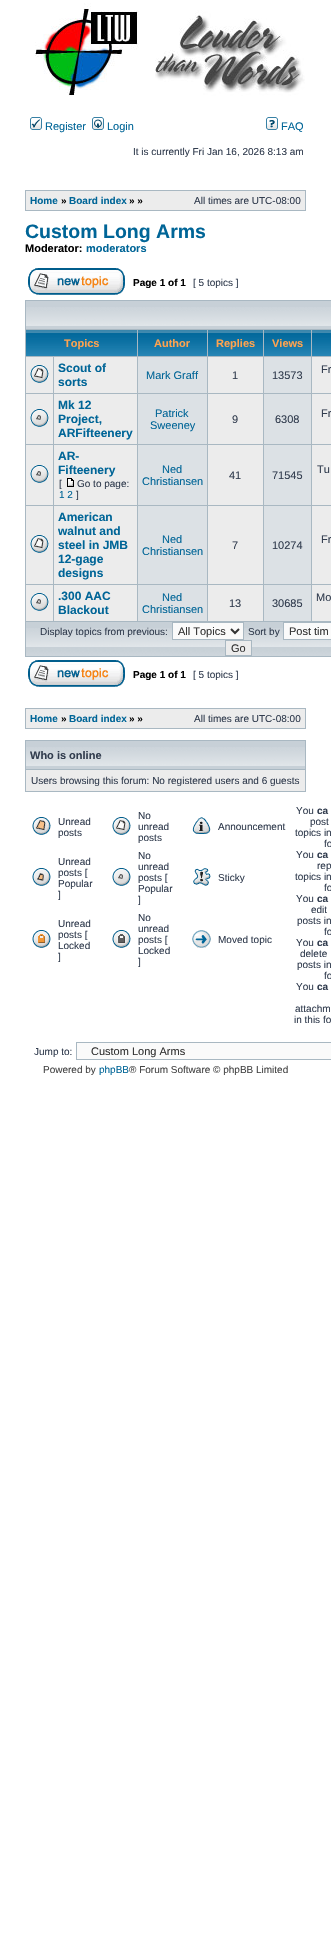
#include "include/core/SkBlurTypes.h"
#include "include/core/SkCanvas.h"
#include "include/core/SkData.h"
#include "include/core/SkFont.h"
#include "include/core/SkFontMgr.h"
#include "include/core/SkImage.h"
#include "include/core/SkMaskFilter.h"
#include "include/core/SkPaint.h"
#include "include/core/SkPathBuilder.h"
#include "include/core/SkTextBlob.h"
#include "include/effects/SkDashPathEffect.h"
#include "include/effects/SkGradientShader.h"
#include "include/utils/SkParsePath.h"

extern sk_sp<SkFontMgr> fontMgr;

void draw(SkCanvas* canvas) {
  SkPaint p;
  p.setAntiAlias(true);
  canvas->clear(SK_ColorWHITE);
  canvas->drawImageRect(SkImages::DeferredFromEncodedData(SkData::MakeFromFileName("images/1.png")), SkRect::MakeLTRB(35, 3, 305, 96), SkSamplingOptions());
  canvas->drawImageRect(SkImages::DeferredFromEncodedData(SkData::MakeFromFileName("images/2.png")), SkRect::MakeLTRB(30, 117, 42, 130), SkSamplingOptions());
  canvas->drawImageRect(SkImages::DeferredFromEncodedData(SkData::MakeFromFileName("images/3.png")), SkRect::MakeLTRB(92, 117, 104, 130), SkSamplingOptions());
  canvas->drawImageRect(SkImages::DeferredFromEncodedData(SkData::MakeFromFileName("images/4.png")), SkRect::MakeLTRB(266, 117, 278, 130), SkSamplingOptions());
  p.setColor(SkColorSetRGB(169, 184, 194));
  canvas->drawRect(SkRect::MakeLTRB(25, 190, 306, 211), p);
  p.setColor(SkColorSetRGB(236, 236, 236));
  canvas->drawRect(SkRect::MakeLTRB(26, 191, 305, 210), p);
  canvas->drawImageRect(SkImages::DeferredFromEncodedData(SkData::MakeFromFileName("images/5.png")), SkRect::MakeLTRB(28, 268, 125, 295), SkSamplingOptions());
  p.setColor(SkColorSetRGB(169, 184, 194));
  canvas->drawRect(SkRect::MakeLTRB(25, 300, 331, 657), p);
  p.setColor(SkColorSetRGB(199, 208, 215));
  canvas->drawRect(SkRect::MakeLTRB(26, 301, 331, 329), p);
  canvas->drawImageRect(SkImages::DeferredFromEncodedData(SkData::MakeFromFileName("images/6.png")), SkRect::MakeLTRB(26, 307, 331, 326), SkSamplingOptions());
  canvas->drawImageRect(SkImages::DeferredFromEncodedData(SkData::MakeFromFileName("images/7.png")), SkRect::MakeLTRB(26, 330, 137, 356), SkSamplingOptions());
  canvas->drawImageRect(SkImages::DeferredFromEncodedData(SkData::MakeFromFileName("images/8.png")), SkRect::MakeLTRB(138, 330, 207, 356), SkSamplingOptions());
  canvas->drawImageRect(SkImages::DeferredFromEncodedData(SkData::MakeFromFileName("images/9.png")), SkRect::MakeLTRB(208, 330, 263, 356), SkSamplingOptions());
  canvas->drawImageRect(SkImages::DeferredFromEncodedData(SkData::MakeFromFileName("images/10.png")), SkRect::MakeLTRB(264, 330, 311, 356), SkSamplingOptions());
  canvas->drawImageRect(SkImages::DeferredFromEncodedData(SkData::MakeFromFileName("images/11.png")), SkRect::MakeLTRB(312, 330, 331, 356), SkSamplingOptions());
  p.setColor(SkColorSetRGB(236, 236, 236));
  canvas->drawRect(SkRect::MakeLTRB(26, 357, 53, 393), p);
  canvas->drawImageRect(SkImages::DeferredFromEncodedData(SkData::MakeFromFileName("images/12.png")), SkRect::MakeLTRB(30, 365, 49, 383), SkSamplingOptions());
  canvas->drawRect(SkRect::MakeLTRB(54, 357, 137, 393), p);
  canvas->drawRect(SkRect::MakeLTRB(312, 357, 331, 393), p);
  p.setColor(SkColorSetRGB(220, 225, 229));
  canvas->drawRect(SkRect::MakeLTRB(138, 357, 207, 393), p);
  p.setColor(SkColorSetRGB(236, 236, 236));
  canvas->drawRect(SkRect::MakeLTRB(208, 357, 263, 393), p);
  p.setColor(SkColorSetRGB(220, 225, 229));
  canvas->drawRect(SkRect::MakeLTRB(264, 357, 311, 393), p);
  p.setColor(SkColorSetRGB(236, 236, 236));
  canvas->drawRect(SkRect::MakeLTRB(26, 394, 53, 444), p);
  canvas->drawImageRect(SkImages::DeferredFromEncodedData(SkData::MakeFromFileName("images/13.png")), SkRect::MakeLTRB(30, 409, 49, 427), SkSamplingOptions());
  canvas->drawRect(SkRect::MakeLTRB(54, 394, 137, 444), p);
  p.setColor(SkColorSetRGB(220, 225, 229));
  canvas->drawRect(SkRect::MakeLTRB(138, 394, 207, 444), p);
  p.setColor(SkColorSetRGB(236, 236, 236));
  canvas->drawRect(SkRect::MakeLTRB(312, 394, 331, 444), p);
  canvas->drawRect(SkRect::MakeLTRB(208, 394, 263, 444), p);
  p.setColor(SkColorSetRGB(220, 225, 229));
  canvas->drawRect(SkRect::MakeLTRB(264, 394, 311, 444), p);
  p.setColor(SkColorSetRGB(236, 236, 236));
  canvas->drawRect(SkRect::MakeLTRB(26, 445, 53, 505), p);
  canvas->drawImageRect(SkImages::DeferredFromEncodedData(SkData::MakeFromFileName("images/13.png")), SkRect::MakeLTRB(30, 465, 49, 483), SkSamplingOptions());
  canvas->drawRect(SkRect::MakeLTRB(54, 445, 137, 505), p);
  canvas->drawImageRect(SkImages::DeferredFromEncodedData(SkData::MakeFromFileName("images/14.png")), SkRect::MakeLTRB(67, 478, 74, 487), SkSamplingOptions());
  p.setColor(SkColorSetRGB(220, 225, 229));
  canvas->drawRect(SkRect::MakeLTRB(138, 445, 207, 505), p);
  p.setColor(SkColorSetRGB(236, 236, 236));
  canvas->drawRect(SkRect::MakeLTRB(312, 445, 331, 505), p);
  canvas->drawRect(SkRect::MakeLTRB(208, 445, 263, 505), p);
  p.setColor(SkColorSetRGB(220, 225, 229));
  canvas->drawRect(SkRect::MakeLTRB(264, 445, 311, 505), p);
  p.setColor(SkColorSetRGB(236, 236, 236));
  canvas->drawRect(SkRect::MakeLTRB(26, 506, 53, 584), p);
  canvas->drawImageRect(SkImages::DeferredFromEncodedData(SkData::MakeFromFileName("images/12.png")), SkRect::MakeLTRB(30, 535, 49, 553), SkSamplingOptions());
  canvas->drawRect(SkRect::MakeLTRB(54, 506, 137, 584), p);
  p.setColor(SkColorSetRGB(220, 225, 229));
  canvas->drawRect(SkRect::MakeLTRB(138, 506, 207, 584), p);
  p.setColor(SkColorSetRGB(236, 236, 236));
  canvas->drawRect(SkRect::MakeLTRB(312, 506, 331, 584), p);
  canvas->drawRect(SkRect::MakeLTRB(208, 506, 263, 584), p);
  p.setColor(SkColorSetRGB(220, 225, 229));
  canvas->drawRect(SkRect::MakeLTRB(264, 506, 311, 584), p);
  p.setColor(SkColorSetRGB(236, 236, 236));
  canvas->drawRect(SkRect::MakeLTRB(26, 585, 53, 621), p);
  canvas->drawImageRect(SkImages::DeferredFromEncodedData(SkData::MakeFromFileName("images/13.png")), SkRect::MakeLTRB(30, 593, 49, 611), SkSamplingOptions());
  canvas->drawRect(SkRect::MakeLTRB(54, 585, 137, 621), p);
  p.setColor(SkColorSetRGB(220, 225, 229));
  canvas->drawRect(SkRect::MakeLTRB(138, 585, 207, 621), p);
  p.setColor(SkColorSetRGB(236, 236, 236));
  canvas->drawRect(SkRect::MakeLTRB(312, 585, 331, 621), p);
  canvas->drawRect(SkRect::MakeLTRB(208, 585, 263, 621), p);
  p.setColor(SkColorSetRGB(220, 225, 229));
  canvas->drawRect(SkRect::MakeLTRB(264, 585, 311, 621), p);
  p.setColor(SkColorSetRGB(199, 208, 215));
  canvas->drawRect(SkRect::MakeLTRB(26, 622, 283, 628), p);
  canvas->drawImageRect(SkImages::DeferredFromEncodedData(SkData::MakeFromFileName("images/15.png")), SkRect::MakeLTRB(26, 628, 331, 656), SkSamplingOptions());
  p.setColor(SkColorSetRGB(250, 250, 250));
  canvas->drawRect(SkRect::MakeLTRB(172.5f, 622.5f, 243.5f, 639.5f), p);
  p.setStyle(SkPaint::kStroke_Style);
  p.setStrokeWidth(1);
  p.setColor(SkColorSetRGB(169, 184, 194));
  canvas->drawRect(SkRect::MakeLTRB(172.5f, 622.5f, 243.5f, 639.5f), p);
  p.setStrokeWidth(2);
  p.setColor(SkColorSetRGB(51, 51, 51));
  canvas->drawPath(SkPathBuilder().moveTo(231, 629).lineTo(235, 633).lineTo(239, 629).detach(), p);
  p.setStyle(SkPaint::kFill_Style);
  p.setColor(SkColorSetRGB(250, 250, 250));
  canvas->drawRect(SkRect::MakeLTRB(283.5f, 622.5f, 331.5f, 639.5f), p);
  p.setStyle(SkPaint::kStroke_Style);
  p.setStrokeWidth(1);
  p.setColor(SkColorSetRGB(169, 184, 194));
  canvas->drawRect(SkRect::MakeLTRB(283.5f, 622.5f, 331.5f, 639.5f), p);
  p.setStyle(SkPaint::kFill_Style);
  p.setColor(SkColorSetRGB(236, 236, 236));
  canvas->drawRect(SkRect::MakeLTRB(225.5f, 640.5f, 251.5f, 655.5f), p);
  p.setStyle(SkPaint::kStroke_Style);
  p.setColor(SkColorSetRGB(169, 184, 194));
  canvas->drawRect(SkRect::MakeLTRB(225.5f, 640.5f, 251.5f, 655.5f), p);
  canvas->drawImageRect(SkImages::DeferredFromEncodedData(SkData::MakeFromFileName("images/5.png")), SkRect::MakeLTRB(28, 660, 125, 687), SkSamplingOptions());
  p.setStyle(SkPaint::kFill_Style);
  canvas->drawRect(SkRect::MakeLTRB(25, 708, 306, 729), p);
  p.setColor(SkColorSetRGB(236, 236, 236));
  canvas->drawRect(SkRect::MakeLTRB(26, 709, 305, 728), p);
  p.setColor(SkColorSetRGB(169, 184, 194));
  canvas->drawRect(SkRect::MakeLTRB(25, 740, 306, 792), p);
  p.setColor(SkColorSetRGB(199, 208, 215));
  canvas->drawRect(SkRect::MakeLTRB(26, 741, 305, 769), p);
  canvas->drawImageRect(SkImages::DeferredFromEncodedData(SkData::MakeFromFileName("images/16.png")), SkRect::MakeLTRB(26, 747, 305, 766), SkSamplingOptions());
  p.setColor(SkColorSetRGB(236, 236, 236));
  canvas->drawRect(SkRect::MakeLTRB(26, 770, 305, 791), p);
  canvas->drawImageRect(SkImages::DeferredFromEncodedData(SkData::MakeFromFileName("images/17.png")), SkRect::MakeLTRB(32, 817, 51, 835), SkSamplingOptions());
  canvas->drawImageRect(SkImages::DeferredFromEncodedData(SkData::MakeFromFileName("images/18.png")), SkRect::MakeLTRB(112, 817, 131, 835), SkSamplingOptions());
  canvas->drawImageRect(SkImages::DeferredFromEncodedData(SkData::MakeFromFileName("images/19.png")), SkRect::MakeLTRB(192, 817, 211, 834), SkSamplingOptions());
  canvas->drawImageRect(SkImages::DeferredFromEncodedData(SkData::MakeFromFileName("images/20.png")), SkRect::MakeLTRB(32, 868, 51, 886), SkSamplingOptions());
  canvas->drawImageRect(SkImages::DeferredFromEncodedData(SkData::MakeFromFileName("images/21.png")), SkRect::MakeLTRB(112, 868, 131, 886), SkSamplingOptions());
  canvas->drawImageRect(SkImages::DeferredFromEncodedData(SkData::MakeFromFileName("images/22.png")), SkRect::MakeLTRB(193, 868, 211, 886), SkSamplingOptions());
  canvas->drawImageRect(SkImages::DeferredFromEncodedData(SkData::MakeFromFileName("images/23.png")), SkRect::MakeLTRB(32, 930, 51, 948), SkSamplingOptions());
  canvas->drawImageRect(SkImages::DeferredFromEncodedData(SkData::MakeFromFileName("images/24.png")), SkRect::MakeLTRB(112, 930, 131, 948), SkSamplingOptions());
  canvas->drawImageRect(SkImages::DeferredFromEncodedData(SkData::MakeFromFileName("images/25.png")), SkRect::MakeLTRB(192, 930, 211, 948), SkSamplingOptions());
  p.setColor(SkColorSetRGB(250, 250, 250));
  canvas->drawRect(SkRect::MakeLTRB(76.5f, 1042.5f, 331.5f, 1059.5f), p);
  p.setStyle(SkPaint::kStroke_Style);
  p.setColor(SkColorSetRGB(169, 184, 194));
  canvas->drawRect(SkRect::MakeLTRB(76.5f, 1042.5f, 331.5f, 1059.5f), p);
  SkFont font1(fontMgr->matchFamilyStyle("Liberation Sans", SkFontStyle::Normal()), 11);
  font1.setSubpixel(true);
  p.setStyle(SkPaint::kFill_Style);
  p.setColor(SkColorSetRGB(0, 101, 151));
  canvas->drawString("Register", 45, 130, font1, p);
  canvas->drawString("Login", 107, 130, font1, p);
  canvas->drawString("FAQ", 281, 130, font1, p);
  SkFont font2(fontMgr->matchFamilyStyle("Liberation Sans", SkFontStyle::Normal()), 10);
  font2.setSubpixel(true);
  p.setColor(SkColorSetRGB(50, 61, 79));
  canvas->drawString("It is currently Fri Jan 16, 2026 8:13 am", 133, 155, font2, p);
  SkFont font3(fontMgr->matchFamilyStyle("Liberation Sans", SkFontStyle::Bold()), 10);
  font3.setSubpixel(true);
  p.setColor(SkColorSetRGB(0, 101, 151));
  canvas->drawString("Home", 30, 204, font3, p);
  p.setColor(SK_ColorBLACK);
  canvas->drawString("»", 61, 204, font3, p);
  p.setColor(SkColorSetRGB(0, 101, 151));
  canvas->drawString("Board index", 69, 204, font3, p);
  p.setColor(SK_ColorBLACK);
  canvas->drawString("» »", 129, 204, font3, p);
  p.setColor(SkColorSetRGB(50, 61, 79));
  canvas->drawString("All times are UTC-08:00", 194, 204, font2, p);
  SkFont font4(fontMgr->matchFamilyStyle("Liberation Sans", SkFontStyle::Bold()), 19.5f);
  font4.setSubpixel(true);
  p.setColor(SkColorSetRGB(0, 101, 151));
  canvas->drawString("Custom Long Arms", 25, 238, font4, p);
  SkFont font5(fontMgr->matchFamilyStyle("Liberation Sans", SkFontStyle::Bold()), 11);
  font5.setSubpixel(true);
  p.setColor(SK_ColorBLACK);
  canvas->drawString("Moderator:", 25, 252, font5, p);
  p.setColor(SkColorSetRGB(0, 101, 151));
  canvas->drawString("moderators", 86, 252, font5, p);
  p.setColor(SK_ColorBLACK);
  canvas->drawString("Page 1 of 1", 133, 286, font3, p);
  p.setColor(SkColorSetRGB(50, 61, 79));
  canvas->drawString("[ 5 topics ]", 193, 286, font2, p);
  p.setColor(SkColorSetRGB(255, 163, 79));
  canvas->drawString("Topics", 64, 347, font5, p);
  canvas->drawString("Author", 154, 347, font5, p);
  canvas->drawString("Replies", 216, 347, font5, p);
  canvas->drawString("Views", 272, 347, font5, p);
  SkFont font6(fontMgr->matchFamilyStyle("Liberation Sans", SkFontStyle::Bold()), 12);
  font6.setSubpixel(true);
  p.setColor(SkColorSetRGB(0, 101, 151));
  canvas->drawString("Scout of", 58, 372, font6, p);
  canvas->drawString("sorts", 58, 386, font6, p);
  p.setColor(SkColorSetRGB(50, 61, 79));
  canvas->drawString("Fr", 321, 373, font1, p);
  p.setColor(SkColorSetRGB(0, 101, 151));
  canvas->drawString("Mark Graff", 146, 379, font1, p);
  p.setColor(SkColorSetRGB(50, 61, 79));
  canvas->drawString("1", 232, 379, font1, p);
  canvas->drawString("13573", 272, 379, font1, p);
  p.setColor(SkColorSetRGB(0, 101, 151));
  canvas->drawString("Mk 12", 58, 409, font6, p);
  canvas->drawString("Project,", 58, 423, font6, p);
  canvas->drawString("ARFifteenery", 58, 437, font6, p);
  canvas->drawString("Patrick", 155, 417, font1, p);
  canvas->drawString("Sweeney", 150, 429, font1, p);
  p.setColor(SkColorSetRGB(50, 61, 79));
  canvas->drawString("Fr", 321, 417, font1, p);
  canvas->drawString("9", 232, 423, font1, p);
  canvas->drawString("6308", 275, 423, font1, p);
  p.setColor(SkColorSetRGB(0, 101, 151));
  canvas->drawString("AR-", 58, 460, font6, p);
  canvas->drawString("Fifteenery", 58, 474, font6, p);
  p.setColor(SkColorSetRGB(50, 61, 79));
  canvas->drawString("[", 59, 487, font2, p);
  canvas->drawString("Go to page:", 77, 487, font2, p);
  p.setColor(SkColorSetRGB(0, 101, 151));
  canvas->drawString("1 2", 59, 498, font2, p);
  p.setColor(SkColorSetRGB(50, 61, 79));
  canvas->drawString("]", 76, 498, font2, p);
  p.setColor(SkColorSetRGB(0, 101, 151));
  canvas->drawString("Ned", 162, 473, font1, p);
  canvas->drawString("Christiansen", 142, 485, font1, p);
  p.setColor(SkColorSetRGB(50, 61, 79));
  canvas->drawString("Tu", 317, 473, font1, p);
  canvas->drawString("41", 229, 479, font1, p);
  canvas->drawString("71545", 272, 479, font1, p);
  p.setColor(SkColorSetRGB(0, 101, 151));
  canvas->drawString("American", 58, 521, font6, p);
  canvas->drawString("walnut and", 58, 535, font6, p);
  canvas->drawString("steel in JMB", 58, 549, font6, p);
  canvas->drawString("12-gage", 58, 563, font6, p);
  canvas->drawString("designs", 58, 577, font6, p);
  canvas->drawString("Ned", 162, 543, font1, p);
  canvas->drawString("Christiansen", 142, 555, font1, p);
  p.setColor(SkColorSetRGB(50, 61, 79));
  canvas->drawString("Fr", 321, 543, font1, p);
  canvas->drawString("7", 232, 549, font1, p);
  canvas->drawString("10274", 272, 549, font1, p);
  p.setColor(SkColorSetRGB(0, 101, 151));
  canvas->drawString(".300 AAC", 58, 600, font6, p);
  canvas->drawString("Blackout", 58, 614, font6, p);
  canvas->drawString("Ned", 162, 601, font1, p);
  canvas->drawString("Christiansen", 142, 613, font1, p);
  p.setColor(SkColorSetRGB(50, 61, 79));
  canvas->drawString("Mo", 316, 601, font1, p);
  canvas->drawString("13", 229, 607, font1, p);
  canvas->drawString("30685", 272, 607, font1, p);
  canvas->drawString("Display topics from previous:", 40, 635, font2, p);
  p.setColor(SkColorSetRGB(51, 51, 51));
  canvas->drawString("All Topics", 178, 635, font1, p);
  p.setColor(SkColorSetRGB(50, 61, 79));
  canvas->drawString("Sort by", 248, 635, font2, p);
  p.setColor(SkColorSetRGB(51, 51, 51));
  canvas->drawString("Post tim", 289, 635, font1, p);
  canvas->drawString("Go", 231, 652, font1, p);
  p.setColor(SK_ColorBLACK);
  canvas->drawString("Page 1 of 1", 133, 678, font3, p);
  p.setColor(SkColorSetRGB(50, 61, 79));
  canvas->drawString("[ 5 topics ]", 193, 678, font2, p);
  p.setColor(SkColorSetRGB(0, 101, 151));
  canvas->drawString("Home", 30, 722, font3, p);
  p.setColor(SK_ColorBLACK);
  canvas->drawString("»", 61, 722, font3, p);
  p.setColor(SkColorSetRGB(0, 101, 151));
  canvas->drawString("Board index", 69, 722, font3, p);
  p.setColor(SK_ColorBLACK);
  canvas->drawString("» »", 129, 722, font3, p);
  p.setColor(SkColorSetRGB(50, 61, 79));
  canvas->drawString("All times are UTC-08:00", 194, 722, font2, p);
  canvas->drawString("Who is online", 30, 759, font5, p);
  canvas->drawString("Users browsing this forum: No registered users and 6 guests", 31, 784, font2, p);
  canvas->drawString("Unread", 58, 825, font2, p);
  canvas->drawString("posts", 58, 836, font2, p);
  canvas->drawString("No", 138, 819, font2, p);
  canvas->drawString("unread", 138, 830, font2, p);
  canvas->drawString("posts", 138, 841, font2, p);
  canvas->drawString("Announcement", 218, 830, font2, p);
  canvas->drawString("Unread", 58, 865, font2, p);
  canvas->drawString("posts [", 58, 876, font2, p);
  canvas->drawString("Popular", 58, 887, font2, p);
  canvas->drawString("]", 58, 898, font2, p);
  canvas->drawString("No", 138, 859, font2, p);
  canvas->drawString("unread", 138, 870, font2, p);
  canvas->drawString("posts [", 138, 881, font2, p);
  canvas->drawString("Popular", 138, 892, font2, p);
  canvas->drawString("]", 138, 903, font2, p);
  canvas->drawString("Sticky", 218, 881, font2, p);
  canvas->drawString("Unread", 58, 927, font2, p);
  canvas->drawString("posts [", 58, 938, font2, p);
  canvas->drawString("Locked", 58, 949, font2, p);
  canvas->drawString("]", 58, 960, font2, p);
  canvas->drawString("No", 138, 921, font2, p);
  canvas->drawString("unread", 138, 932, font2, p);
  canvas->drawString("posts [", 138, 943, font2, p);
  canvas->drawString("Locked", 138, 954, font2, p);
  canvas->drawString("]", 138, 965, font2, p);
  canvas->drawString("Moved topic", 218, 943, font2, p);
  canvas->drawString("You", 296, 814, font2, p);
  canvas->drawString("ca", 317, 814, font3, p);
  canvas->drawString("post", 310, 825, font2, p);
  canvas->drawString("topics in", 295, 836, font2, p);
  canvas->drawString("fo", 324, 847, font2, p);
  canvas->drawString("You", 296, 858, font2, p);
  canvas->drawString("ca", 317, 858, font3, p);
  canvas->drawString("rep", 317, 869, font2, p);
  canvas->drawString("topics in", 295, 880, font2, p);
  canvas->drawString("fo", 324, 891, font2, p);
  canvas->drawString("You", 296, 902, font2, p);
  canvas->drawString("ca", 317, 902, font3, p);
  canvas->drawString("edit", 311, 913, font2, p);
  canvas->drawString("posts in", 297, 924, font2, p);
  canvas->drawString("fo", 324, 935, font2, p);
  canvas->drawString("You", 296, 946, font2, p);
  canvas->drawString("ca", 317, 946, font3, p);
  canvas->drawString("delete", 300, 957, font2, p);
  canvas->drawString("posts in", 297, 968, font2, p);
  canvas->drawString("fo", 324, 979, font2, p);
  canvas->drawString("You", 296, 990, font2, p);
  canvas->drawString("ca", 317, 990, font3, p);
  canvas->drawString("attachm", 295, 1012, font2, p);
  canvas->drawString("in this fo", 294, 1023, font2, p);
  canvas->drawString("Jump to:", 34, 1055, font2, p);
  p.setColor(SkColorSetRGB(51, 51, 51));
  canvas->drawString("Custom Long Arms", 91, 1055, font1, p);
  p.setColor(SkColorSetRGB(68, 68, 68));
  canvas->drawString("Powered by", 43, 1073, font2, p);
  p.setColor(SkColorSetRGB(0, 101, 151));
  canvas->drawString("phpBB", 99, 1073, font2, p);
  p.setColor(SkColorSetRGB(68, 68, 68));
  canvas->drawString("® Forum Software © phpBB Limited", 129, 1073, font2, p);
}
